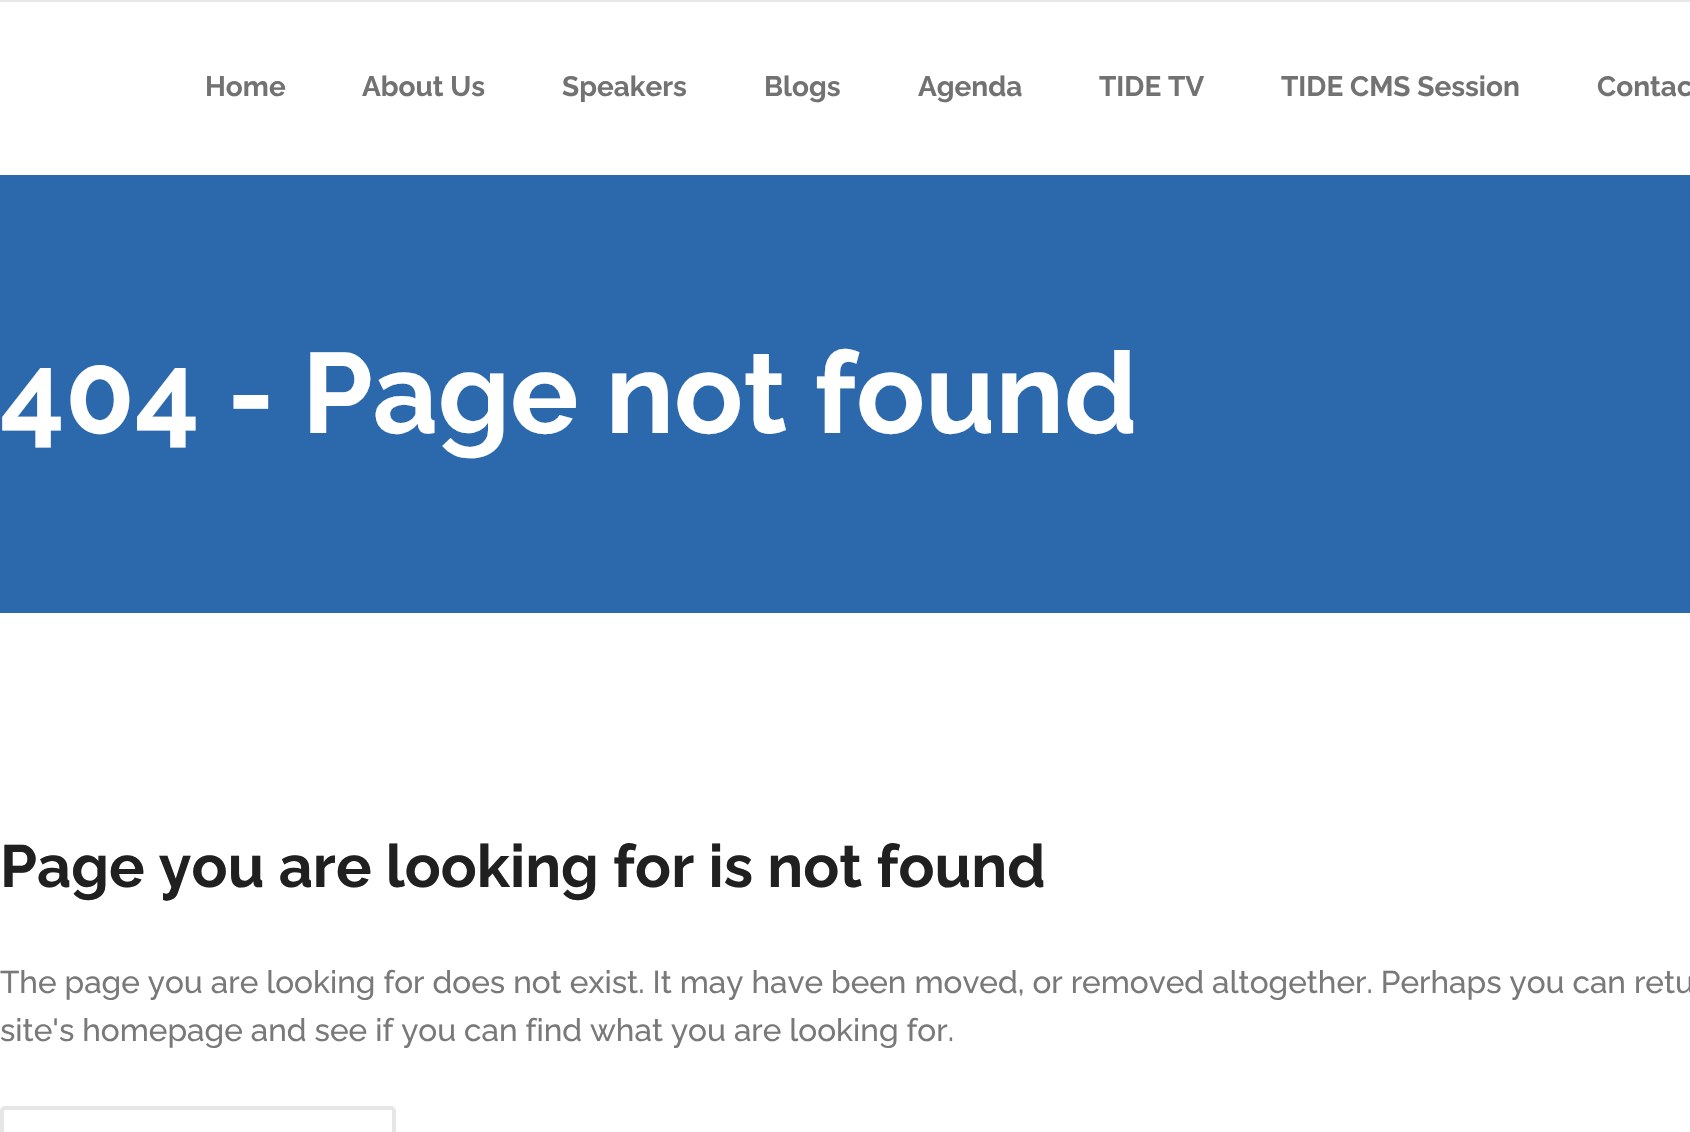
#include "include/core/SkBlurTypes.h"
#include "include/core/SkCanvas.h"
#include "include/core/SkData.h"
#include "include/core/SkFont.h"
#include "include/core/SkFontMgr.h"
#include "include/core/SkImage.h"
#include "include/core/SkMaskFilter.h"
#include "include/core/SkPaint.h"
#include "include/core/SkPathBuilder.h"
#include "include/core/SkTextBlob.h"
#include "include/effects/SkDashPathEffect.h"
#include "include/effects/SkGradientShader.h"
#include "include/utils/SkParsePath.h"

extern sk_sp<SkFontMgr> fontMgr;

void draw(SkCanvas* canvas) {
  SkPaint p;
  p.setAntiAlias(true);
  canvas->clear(SK_ColorWHITE);
  p.setColor(SkColorSetRGB(231, 231, 231));
  canvas->drawRect(SkRect::MakeLTRB(0, 0, 1690, 2), p);
  p.setColor(SkColorSetRGB(43, 104, 172));
  canvas->drawRect(SkRect::MakeLTRB(0, 175, 1690, 613), p);
  p.setStyle(SkPaint::kStroke_Style);
  p.setStrokeWidth(4);
  p.setColor(SkColorSetRGB(230, 230, 230));
  canvas->drawRoundRect(SkRect::MakeLTRB(2, 1108, 394, 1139), 3, 3, p);
  SkFont font1(fontMgr->matchFamilyStyle("Raleway", SkFontStyle::Bold()), 28);
  font1.setSubpixel(true);
  p.setStyle(SkPaint::kFill_Style);
  p.setColor(SkColorSetRGB(114, 114, 114));
  canvas->drawString("Home", 205, 96, font1, p);
  canvas->drawString("About Us", 362, 96, font1, p);
  canvas->drawString("Speakers", 562, 96, font1, p);
  canvas->drawString("Blogs", 764, 96, font1, p);
  canvas->drawString("Agenda", 918, 96, font1, p);
  canvas->drawString("TIDE TV", 1099, 96, font1, p);
  canvas->drawString("TIDE CMS Session", 1281, 96, font1, p);
  canvas->drawString("Contac", 1597, 96, font1, p);
  SkFont font2(fontMgr->matchFamilyStyle("Raleway", SkFontStyle::Bold()), 113.75f);
  font2.setSubpixel(true);
  p.setColor(SK_ColorWHITE);
  canvas->drawString("404 - Page not found", 0, 433, font2, p);
  SkFont font3(fontMgr->matchFamilyStyle("Raleway", SkFontStyle::Bold()), 59.5f);
  font3.setSubpixel(true);
  p.setColor(SkColorSetRGB(32, 32, 32));
  canvas->drawString("Page you are looking for is not found", 0, 887, font3, p);
  SkFont font4(fontMgr->matchFamilyStyle("Raleway", SkFontStyle(500, SkFontStyle::kNormal_Width, SkFontStyle::kUpright_Slant)), 31.5f);
  font4.setSubpixel(true);
  p.setColor(SkColorSetRGB(121, 121, 121));
  canvas->drawString("The page you are looking for does not exist. It may have been moved, or removed altogether. Perhaps you can retu", 0, 993, font4, p);
  canvas->drawString("site's homepage and see if you can find what you are looking for.", 0, 1041, font4, p);
}
